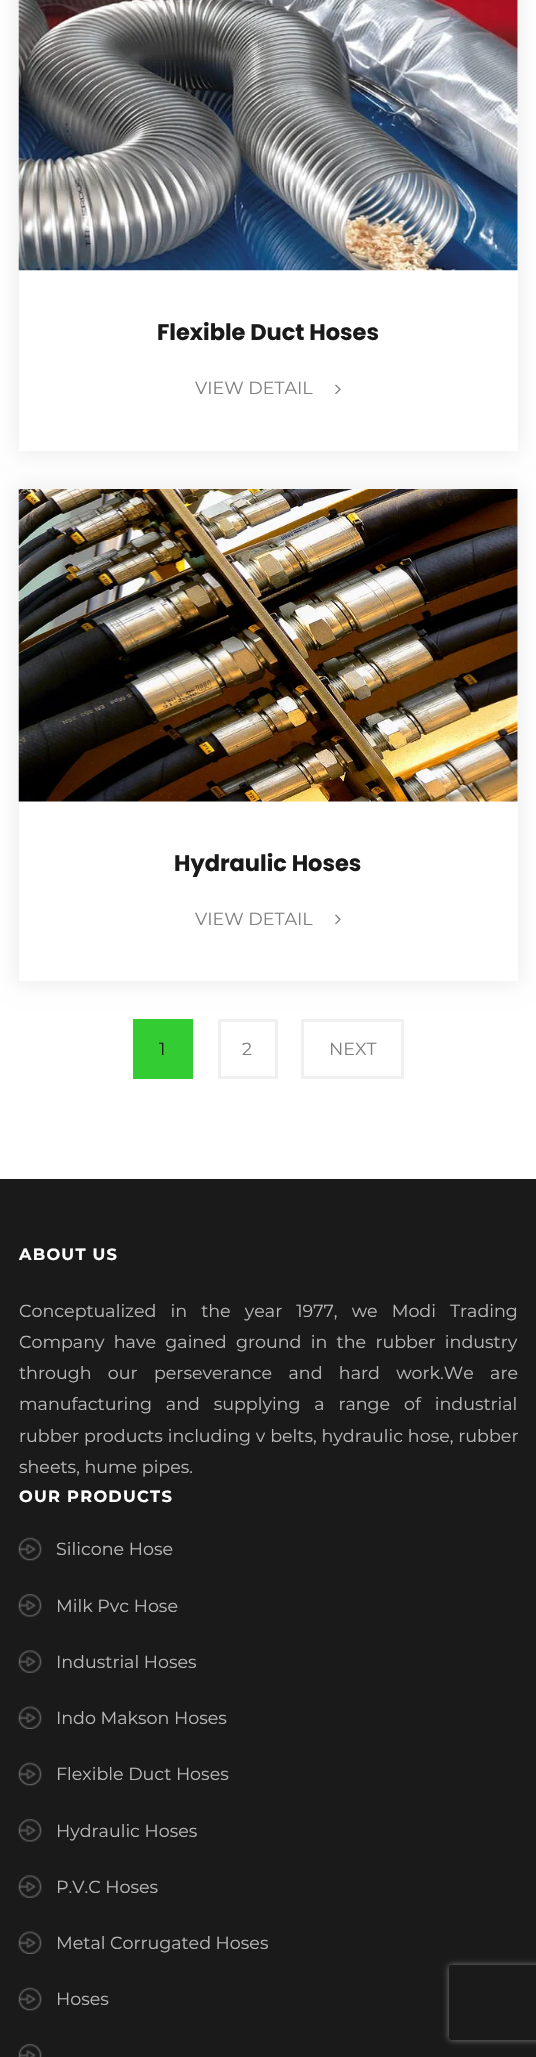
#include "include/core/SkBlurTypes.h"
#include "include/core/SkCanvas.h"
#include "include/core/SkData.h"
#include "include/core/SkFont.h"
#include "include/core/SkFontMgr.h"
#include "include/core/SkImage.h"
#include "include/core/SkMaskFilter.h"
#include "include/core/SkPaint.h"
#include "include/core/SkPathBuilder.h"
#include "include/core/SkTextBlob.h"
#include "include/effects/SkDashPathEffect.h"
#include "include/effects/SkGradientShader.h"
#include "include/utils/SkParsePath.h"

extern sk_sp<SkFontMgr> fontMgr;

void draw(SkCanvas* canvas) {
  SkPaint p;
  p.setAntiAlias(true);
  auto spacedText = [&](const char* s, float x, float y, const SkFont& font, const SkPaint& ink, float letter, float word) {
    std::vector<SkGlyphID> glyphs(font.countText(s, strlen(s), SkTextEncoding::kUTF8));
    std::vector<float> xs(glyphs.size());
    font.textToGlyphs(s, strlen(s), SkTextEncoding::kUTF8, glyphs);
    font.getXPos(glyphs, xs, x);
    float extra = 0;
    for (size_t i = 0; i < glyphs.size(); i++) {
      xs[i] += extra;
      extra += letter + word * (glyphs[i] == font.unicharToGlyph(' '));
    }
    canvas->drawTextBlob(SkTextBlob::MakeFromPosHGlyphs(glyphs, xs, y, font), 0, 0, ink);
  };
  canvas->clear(SK_ColorWHITE);
  canvas->save();
  canvas->clipPath(SkPathBuilder(SkPathFillType::kEvenOdd).moveTo(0, 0).lineTo(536, 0).lineTo(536, 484).lineTo(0, 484).close().moveTo(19, -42).lineTo(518, -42).lineTo(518, 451).lineTo(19, 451).close().detach(), true);
  p.setColor(SkColorSetRGB(237, 237, 237));
  p.setMaskFilter(SkMaskFilter::MakeBlur(kNormal_SkBlurStyle, 9.5f));
  canvas->drawRect(SkRect::MakeLTRB(16, -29, 520, 454), p);
  p.setMaskFilter(nullptr);
  canvas->restore();
  canvas->drawImageRect(SkImages::DeferredFromEncodedData(SkData::MakeFromFileName("images/1.png")), SkRect::MakeLTRB(18, 0, 518, 271), SkSamplingOptions());
  canvas->drawImageRect(SkImages::DeferredFromEncodedData(SkData::MakeFromFileName("images/2.png")), SkRect::MakeLTRB(335, 384, 341, 395), SkSamplingOptions());
  canvas->save();
  canvas->clipPath(SkPathBuilder(SkPathFillType::kEvenOdd).moveTo(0, 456).lineTo(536, 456).lineTo(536, 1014).lineTo(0, 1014).close().moveTo(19, 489).lineTo(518, 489).lineTo(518, 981).lineTo(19, 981).close().detach(), true);
  p.setMaskFilter(SkMaskFilter::MakeBlur(kNormal_SkBlurStyle, 9.5f));
  canvas->drawRect(SkRect::MakeLTRB(16, 486, 520, 984), p);
  p.setMaskFilter(nullptr);
  canvas->restore();
  canvas->drawImageRect(SkImages::DeferredFromEncodedData(SkData::MakeFromFileName("images/3.png")), SkRect::MakeLTRB(18, 489, 518, 802), SkSamplingOptions());
  canvas->drawImageRect(SkImages::DeferredFromEncodedData(SkData::MakeFromFileName("images/2.png")), SkRect::MakeLTRB(335, 914, 341, 925), SkSamplingOptions());
  p.setColor(SkColorSetRGB(51, 204, 51));
  canvas->drawRect(SkRect::MakeLTRB(133, 1019, 193, 1079), p);
  p.setStyle(SkPaint::kStroke_Style);
  p.setStrokeWidth(3);
  p.setColor(SkColorSetRGB(240, 240, 240));
  canvas->drawRect(SkRect::MakeLTRB(219.5f, 1020.5f, 276.5f, 1077.5f), p);
  canvas->drawRect(SkRect::MakeLTRB(302.5f, 1020.5f, 402.5f, 1077.5f), p);
  p.setStyle(SkPaint::kFill_Style);
  p.setColor(SkColorSetRGB(26, 26, 26));
  canvas->drawRect(SkRect::MakeLTRB(0, 1179, 536, 2057), p);
  canvas->drawImageRect(SkImages::DeferredFromEncodedData(SkData::MakeFromFileName("images/4.png")), SkRect::MakeLTRB(18, 1537, 42, 1561), SkSamplingOptions());
  canvas->drawImageRect(SkImages::DeferredFromEncodedData(SkData::MakeFromFileName("images/5.png")), SkRect::MakeLTRB(18, 1594, 42, 1617), SkSamplingOptions());
  canvas->drawImageRect(SkImages::DeferredFromEncodedData(SkData::MakeFromFileName("images/6.png")), SkRect::MakeLTRB(18, 1650, 42, 1673), SkSamplingOptions());
  canvas->drawImageRect(SkImages::DeferredFromEncodedData(SkData::MakeFromFileName("images/7.png")), SkRect::MakeLTRB(18, 1706, 42, 1729), SkSamplingOptions());
  canvas->drawImageRect(SkImages::DeferredFromEncodedData(SkData::MakeFromFileName("images/4.png")), SkRect::MakeLTRB(18, 1762, 42, 1786), SkSamplingOptions());
  canvas->drawImageRect(SkImages::DeferredFromEncodedData(SkData::MakeFromFileName("images/5.png")), SkRect::MakeLTRB(18, 1819, 42, 1842), SkSamplingOptions());
  canvas->drawImageRect(SkImages::DeferredFromEncodedData(SkData::MakeFromFileName("images/8.png")), SkRect::MakeLTRB(18, 1875, 42, 1898), SkSamplingOptions());
  canvas->drawImageRect(SkImages::DeferredFromEncodedData(SkData::MakeFromFileName("images/7.png")), SkRect::MakeLTRB(18, 1931, 42, 1954), SkSamplingOptions());
  canvas->drawImageRect(SkImages::DeferredFromEncodedData(SkData::MakeFromFileName("images/4.png")), SkRect::MakeLTRB(18, 1987, 42, 2011), SkSamplingOptions());
  canvas->drawImageRect(SkImages::DeferredFromEncodedData(SkData::MakeFromFileName("images/9.png")), SkRect::MakeLTRB(18, 2044, 42, 2057), SkSamplingOptions());
  canvas->save();
  canvas->clipPath(SkPathBuilder(SkPathFillType::kEvenOdd).moveTo(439, 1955).lineTo(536, 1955).lineTo(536, 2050).lineTo(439, 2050).close().moveTo(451.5f, 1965).lineTo(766.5f, 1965).cubicTo(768, 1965, 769, 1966, 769, 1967.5f).lineTo(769, 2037.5f).cubicTo(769, 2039, 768, 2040, 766.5f, 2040).lineTo(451.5f, 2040).cubicTo(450, 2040, 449, 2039, 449, 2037.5f).lineTo(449, 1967.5f).cubicTo(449, 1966, 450, 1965, 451.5f, 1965).close().detach(), true);
  p.setColor(SkColorSetRGB(128, 128, 128));
  p.setMaskFilter(SkMaskFilter::MakeBlur(kNormal_SkBlurStyle, 3));
  canvas->drawRoundRect(SkRect::MakeLTRB(449, 1965, 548, 2040), 2.5f, 2.5f, p);
  p.setMaskFilter(nullptr);
  canvas->restore();
  SkFont font1(fontMgr->matchFamilyStyle("Poppins", SkFontStyle::Bold()), 22.5f);
  font1.setSubpixel(true);
  p.setColor(SkColorSetRGB(26, 26, 26));
  canvas->drawString("Flexible Duct Hoses", 157, 340, font1, p);
  SkFont font2(fontMgr->matchFamilyStyle("Montserrat", SkFontStyle::Normal()), 17.5f);
  font2.setSubpixel(true);
  p.setColor(SkColorSetRGB(128, 128, 128));
  canvas->drawString("VIEW DETAIL", 195, 394, font2, p);
  p.setColor(SkColorSetRGB(26, 26, 26));
  canvas->drawString("Hydraulic Hoses", 174, 871, font1, p);
  p.setColor(SkColorSetRGB(128, 128, 128));
  canvas->drawString("VIEW DETAIL", 195, 925, font2, p);
  p.setColor(SkColorSetRGB(26, 26, 26));
  canvas->drawString("1", 159, 1055, font2, p);
  p.setColor(SkColorSetRGB(128, 128, 128));
  canvas->drawString("2", 242, 1055, font2, p);
  canvas->drawString("NEXT", 329, 1055, font2, p);
  SkFont font3(fontMgr->matchFamilyStyle("Montserrat", SkFontStyle::Bold()), 16.25f);
  font3.setSubpixel(true);
  p.setColor(SK_ColorWHITE);
  spacedText("ABOUT US", 19, 1260, font3, p, 1.25f, 0);
  p.setColor(SkColorSetRGB(184, 184, 184));
  spacedText("Conceptualized in the year 1977, we Modi Trading", 19, 1317, font2, p, 0, 9.5f);
  spacedText("Company have gained ground in the rubber industry", 19, 1348, font2, p, 0, 4.75f);
  spacedText("through our perseverance and hard work.We are", 19, 1379, font2, p, 0, 11.75f);
  spacedText("manufacturing and supplying a range of industrial", 19, 1410, font2, p, 0, 9.25f);
  spacedText("rubber products including v belts, hydraulic hose, rubber", 19, 1442, font2, p, 0, 0.25f);
  canvas->drawString("sheets, hume pipes.", 19, 1473, font2, p);
  p.setColor(SK_ColorWHITE);
  spacedText("OUR PRODUCTS", 19, 1502, font3, p, 1.25f, 0);
  p.setColor(SkColorSetRGB(184, 184, 184));
  canvas->drawString("Silicone Hose", 56, 1555, font2, p);
  canvas->drawString("Milk Pvc Hose", 56, 1612, font2, p);
  canvas->drawString("Industrial Hoses", 56, 1668, font2, p);
  canvas->drawString("Indo Makson Hoses", 56, 1724, font2, p);
  canvas->drawString("Flexible Duct Hoses", 56, 1780, font2, p);
  canvas->drawString("Hydraulic Hoses", 56, 1837, font2, p);
  canvas->drawString("P.V.C Hoses", 56, 1893, font2, p);
  canvas->drawString("Metal Corrugated Hoses", 56, 1949, font2, p);
  canvas->drawString("Hoses", 56, 2005, font2, p);
}
